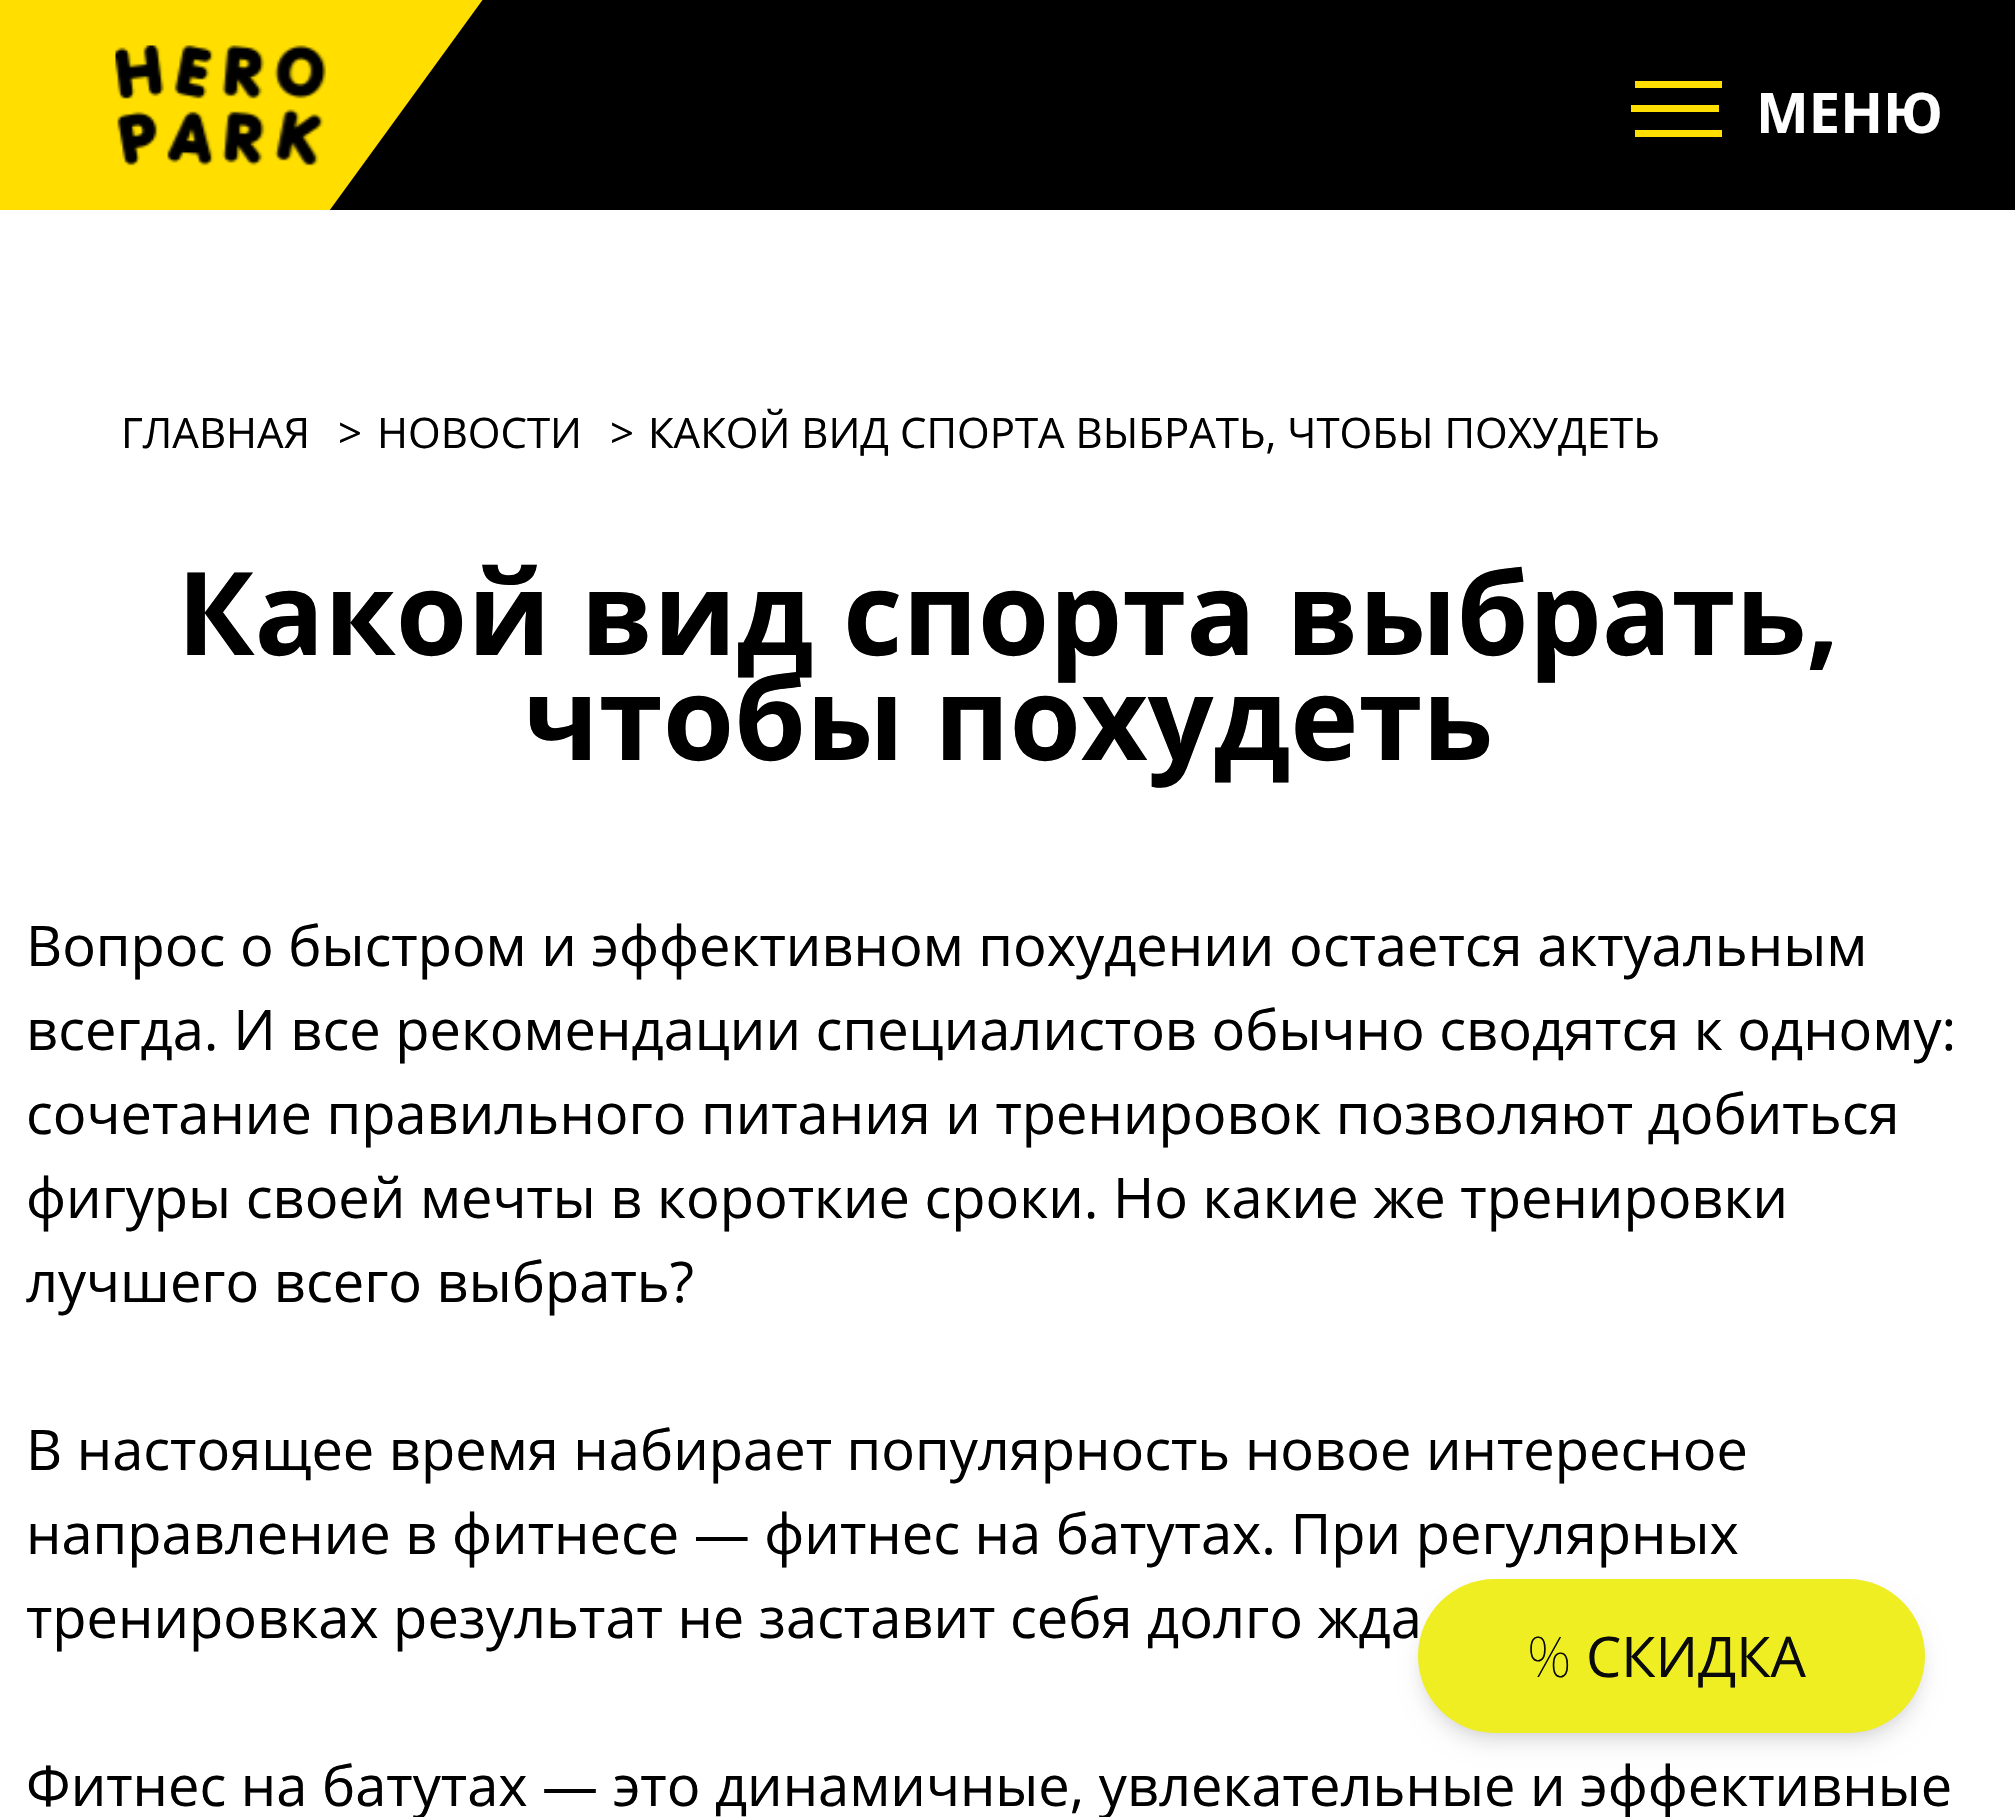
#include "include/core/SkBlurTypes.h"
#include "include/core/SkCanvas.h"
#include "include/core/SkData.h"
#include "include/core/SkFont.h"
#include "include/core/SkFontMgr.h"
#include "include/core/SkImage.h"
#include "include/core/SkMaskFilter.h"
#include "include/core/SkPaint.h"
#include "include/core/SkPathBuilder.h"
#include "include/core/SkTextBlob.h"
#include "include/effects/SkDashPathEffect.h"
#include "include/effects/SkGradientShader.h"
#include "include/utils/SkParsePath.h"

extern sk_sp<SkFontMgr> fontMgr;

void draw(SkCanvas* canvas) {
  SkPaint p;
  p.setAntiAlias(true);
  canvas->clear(SK_ColorWHITE);
  p.setColor(SK_ColorBLACK);
  canvas->drawRect(SkRect::MakeLTRB(329, 0, 2015, 210), p);
  canvas->save();
  canvas->clipRect(SkRect::MakeLTRB(0, 0, 490, 210));
  p.setColor(SkColorSetRGB(255, 222, 0));
  canvas->drawPath(SkPathBuilder().moveTo(617, -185).lineTo(159, 445).lineTo(-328, 91).lineTo(130, -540).close().detach(), p);
  canvas->restore();
  canvas->drawImageRect(SkImages::DeferredFromEncodedData(SkData::MakeFromFileName("images/1.png")), SkRect::MakeLTRB(115, 45, 326, 166), SkSamplingOptions());
  canvas->drawRect(SkRect::MakeLTRB(1631, 105, 1719, 112), p);
  canvas->drawRect(SkRect::MakeLTRB(1635, 81, 1722, 88), p);
  canvas->drawRect(SkRect::MakeLTRB(1635, 130, 1722, 137), p);
  p.setColor(SkColorSetARGB(26, 0, 0, 0));
  p.setMaskFilter(SkMaskFilter::MakeBlur(kNormal_SkBlurStyle, 7));
  canvas->drawRoundRect(SkRect::MakeLTRB(1425, 1593, 1918, 1733), 70, 70, p);
  p.setMaskFilter(nullptr);
  p.setMaskFilter(SkMaskFilter::MakeBlur(kNormal_SkBlurStyle, 10.5f));
  canvas->drawRoundRect(SkRect::MakeLTRB(1421, 1596, 1922, 1743), 73.5f, 73.5f, p);
  p.setMaskFilter(nullptr);
  p.setColor(SkColorSetRGB(238, 238, 34));
  canvas->drawRoundRect(SkRect::MakeLTRB(1418, 1579, 1925, 1733), 77, 77, p);
  SkFont font1(fontMgr->matchFamilyStyle("Open Sans", SkFontStyle::Bold()), 56);
  font1.setSubpixel(true);
  p.setColor(SkColorSetRGB(254, 254, 254));
  canvas->drawString("МЕНЮ", 1756, 133, font1, p);
  SkFont font2(fontMgr->matchFamilyStyle("Open Sans", SkFontStyle::Normal()), 42);
  font2.setSubpixel(true);
  p.setColor(SK_ColorBLACK);
  canvas->drawString("ГЛАВНАЯ", 121, 448, font2, p);
  canvas->drawString(">", 338, 448, font2, p);
  canvas->drawString("НОВОСТИ", 377, 448, font2, p);
  canvas->drawString(">", 610, 448, font2, p);
  canvas->drawString("КАКОЙ ВИД СПОРТА ВЫБРАТЬ, ЧТОБЫ ПОХУДЕТЬ", 648, 448, font2, p);
  SkFont font3(fontMgr->matchFamilyStyle("Open Sans", SkFontStyle::Bold()), 115.5f);
  font3.setSubpixel(true);
  canvas->drawString("Какой вид спорта выбрать,", 177, 655, font3, p);
  canvas->drawString("чтобы похудеть", 523, 760, font3, p);
  SkFont font4(fontMgr->matchFamilyStyle("Open Sans", SkFontStyle::Normal()), 56);
  font4.setSubpixel(true);
  canvas->drawString("Вопрос о быстром и эффективном похудении остается актуальным", 26, 966, font4, p);
  canvas->drawString("всегда. И все рекомендации специалистов обычно сводятся к одному:", 26, 1050, font4, p);
  canvas->drawString("сочетание правильного питания и тренировок позволяют добиться", 26, 1134, font4, p);
  canvas->drawString("фигуры своей мечты в короткие сроки. Но какие же тренировки", 26, 1218, font4, p);
  canvas->drawString("лучшего всего выбрать?", 26, 1302, font4, p);
  canvas->drawString("В настоящее время набирает популярность новое интересное", 26, 1470, font4, p);
  canvas->drawString("направление в фитнесе — фитнес на батутах. При регулярных", 26, 1554, font4, p);
  canvas->drawString("тренировках результат не заставит себя долго жда", 26, 1638, font4, p);
  canvas->drawString("Фитнес на батутах — это динамичные, увлекательные и эффективные", 26, 1806, font4, p);
  SkFont font5(fontMgr->matchFamilyStyle("Noto Sans", SkFontStyle(100, SkFontStyle::kNormal_Width, SkFontStyle::kUpright_Slant)), 56);
  font5.setSubpixel(true);
  p.setColor(SkColorSetRGB(10, 10, 10));
  canvas->drawString("%", 1527, 1677, font5, p);
  canvas->drawString("СКИДКА", 1586, 1677, font4, p);
}
